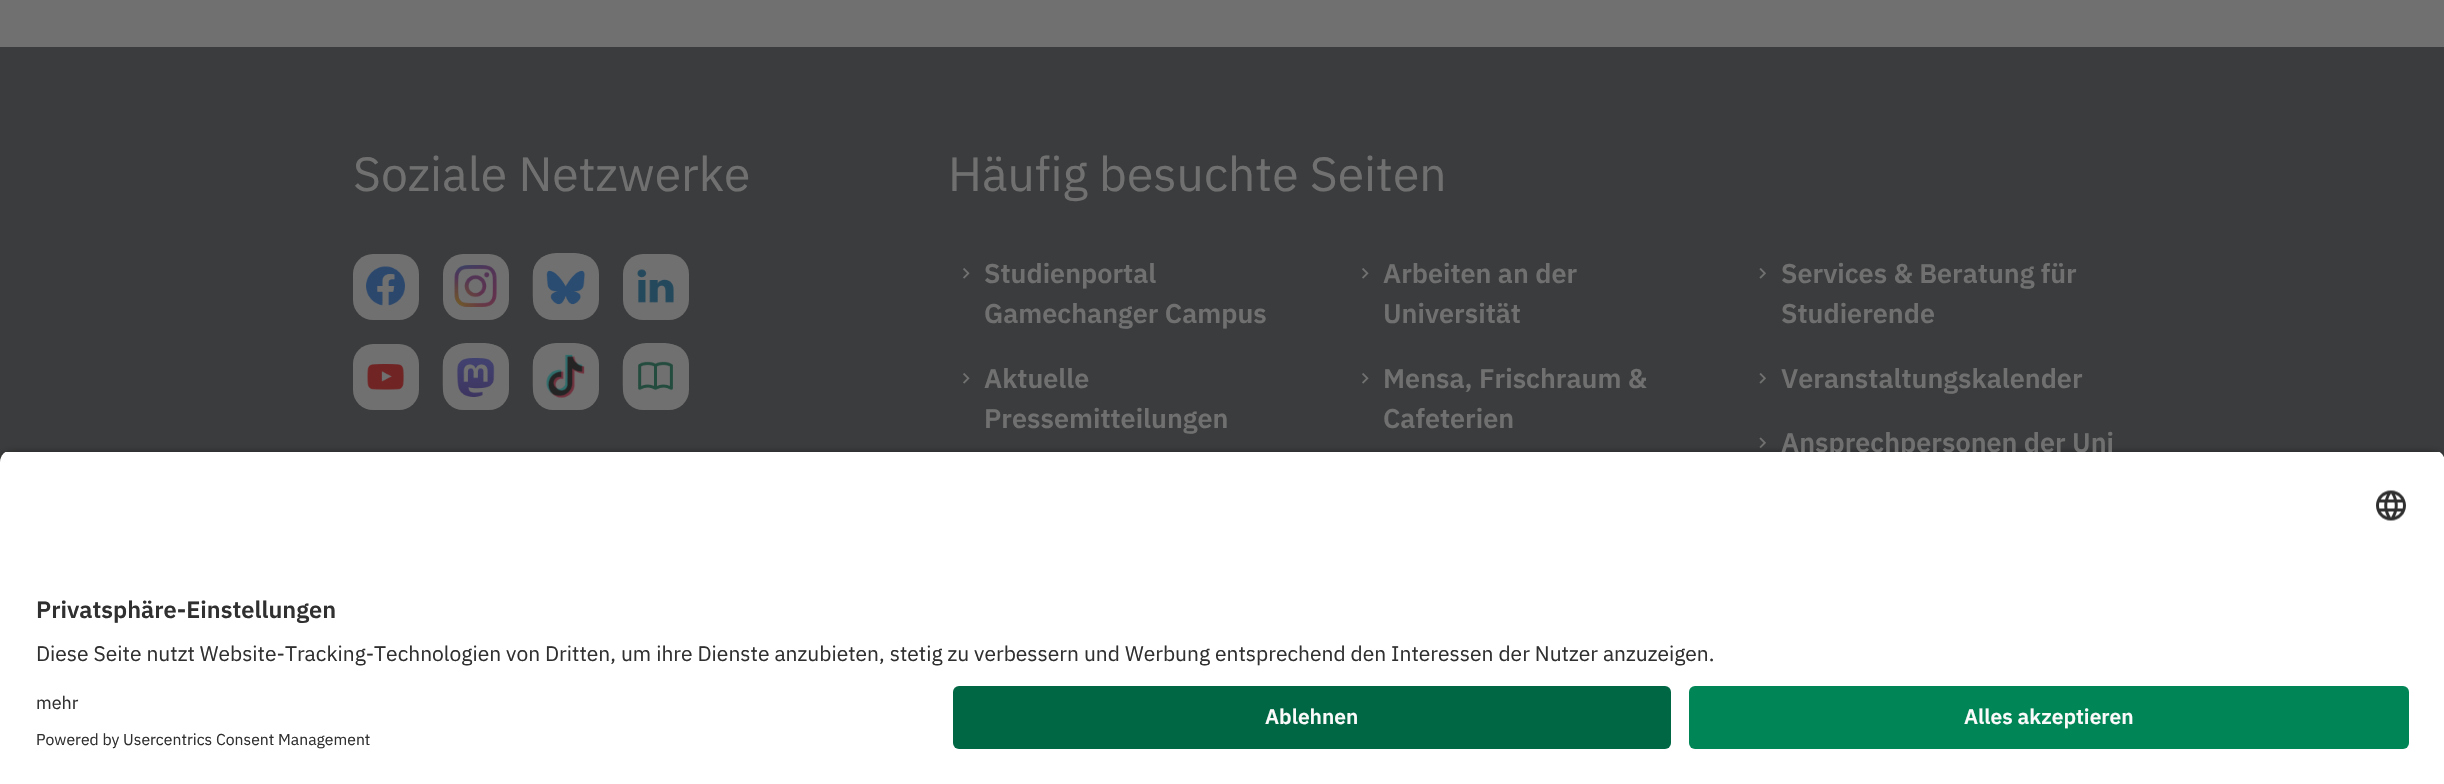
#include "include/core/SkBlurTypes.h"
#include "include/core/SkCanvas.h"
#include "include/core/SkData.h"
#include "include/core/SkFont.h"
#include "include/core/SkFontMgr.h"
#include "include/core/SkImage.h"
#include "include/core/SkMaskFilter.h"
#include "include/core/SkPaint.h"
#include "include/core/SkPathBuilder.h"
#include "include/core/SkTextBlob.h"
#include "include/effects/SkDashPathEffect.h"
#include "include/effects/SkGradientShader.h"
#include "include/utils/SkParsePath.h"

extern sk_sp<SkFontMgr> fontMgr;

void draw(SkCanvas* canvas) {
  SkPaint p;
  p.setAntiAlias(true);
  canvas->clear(SkColorSetRGB(112, 112, 112));
  p.setColor(SkColorSetRGB(59, 60, 61));
  canvas->drawRect(SkRect::MakeLTRB(0, 47, 2444, 462), p);
  p.setColor(SkColorSetRGB(112, 112, 112));
  canvas->drawRoundRect(SkRect::MakeLTRB(353, 254, 419, 320), 20, 20, p);
  canvas->drawImageRect(SkImages::DeferredFromEncodedData(SkData::MakeFromFileName("images/1.png")), SkRect::MakeLTRB(366, 266, 405, 306), SkSamplingOptions());
  canvas->drawRoundRect(SkRect::MakeLTRB(443, 254, 509, 320), 20, 20, p);
  canvas->drawImageRect(SkImages::DeferredFromEncodedData(SkData::MakeFromFileName("images/2.png")), SkRect::MakeLTRB(454, 265, 497, 307), SkSamplingOptions());
  canvas->drawRoundRect(SkRect::MakeLTRB(533, 254, 599, 320), 20, 20, p);
  canvas->drawImageRect(SkImages::DeferredFromEncodedData(SkData::MakeFromFileName("images/3.png")), SkRect::MakeLTRB(532, 253, 586, 305), SkSamplingOptions());
  canvas->drawRoundRect(SkRect::MakeLTRB(623, 254, 689, 320), 20, 20, p);
  canvas->drawImageRect(SkImages::DeferredFromEncodedData(SkData::MakeFromFileName("images/4.png")), SkRect::MakeLTRB(637, 269, 674, 303), SkSamplingOptions());
  canvas->drawRoundRect(SkRect::MakeLTRB(353, 344, 419, 410), 20, 20, p);
  canvas->drawImageRect(SkImages::DeferredFromEncodedData(SkData::MakeFromFileName("images/5.png")), SkRect::MakeLTRB(367, 364, 404, 390), SkSamplingOptions());
  canvas->drawRoundRect(SkRect::MakeLTRB(443, 344, 509, 410), 20, 20, p);
  canvas->drawImageRect(SkImages::DeferredFromEncodedData(SkData::MakeFromFileName("images/6.png")), SkRect::MakeLTRB(442, 343, 496, 397), SkSamplingOptions());
  canvas->drawRoundRect(SkRect::MakeLTRB(533, 344, 599, 410), 20, 20, p);
  canvas->drawImageRect(SkImages::DeferredFromEncodedData(SkData::MakeFromFileName("images/7.png")), SkRect::MakeLTRB(532, 343, 586, 398), SkSamplingOptions());
  canvas->drawRoundRect(SkRect::MakeLTRB(623, 344, 689, 410), 20, 20, p);
  canvas->drawImageRect(SkImages::DeferredFromEncodedData(SkData::MakeFromFileName("images/8.png")), SkRect::MakeLTRB(622, 343, 676, 393), SkSamplingOptions());
  canvas->drawImageRect(SkImages::DeferredFromEncodedData(SkData::MakeFromFileName("images/9.png")), SkRect::MakeLTRB(963, 268, 970, 279), SkSamplingOptions());
  canvas->drawImageRect(SkImages::DeferredFromEncodedData(SkData::MakeFromFileName("images/9.png")), SkRect::MakeLTRB(1362, 268, 1369, 279), SkSamplingOptions());
  canvas->drawImageRect(SkImages::DeferredFromEncodedData(SkData::MakeFromFileName("images/10.png")), SkRect::MakeLTRB(1759, 268, 1766, 279), SkSamplingOptions());
  canvas->drawImageRect(SkImages::DeferredFromEncodedData(SkData::MakeFromFileName("images/9.png")), SkRect::MakeLTRB(963, 373, 970, 384), SkSamplingOptions());
  canvas->drawImageRect(SkImages::DeferredFromEncodedData(SkData::MakeFromFileName("images/9.png")), SkRect::MakeLTRB(1362, 373, 1369, 384), SkSamplingOptions());
  canvas->drawImageRect(SkImages::DeferredFromEncodedData(SkData::MakeFromFileName("images/10.png")), SkRect::MakeLTRB(1759, 373, 1766, 384), SkSamplingOptions());
  canvas->drawImageRect(SkImages::DeferredFromEncodedData(SkData::MakeFromFileName("images/11.png")), SkRect::MakeLTRB(1759, 437, 1766, 449), SkSamplingOptions());
  p.setColor(SkColorSetARGB(204, 0, 0, 0));
  p.setMaskFilter(SkMaskFilter::MakeBlur(kNormal_SkBlurStyle, 5));
  canvas->drawRoundRect(SkRect::MakeLTRB(0, 455, 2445, 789), 12, 12, p);
  p.setMaskFilter(nullptr);
  p.setColor(SK_ColorWHITE);
  canvas->drawRect(SkRect::MakeLTRB(0, 674, 2444, 784), p);
  p.setColor(SkColorSetRGB(0, 103, 68));
  canvas->drawRoundRect(SkRect::MakeLTRB(953, 686, 1671, 749), 6, 6, p);
  p.setColor(SkColorSetRGB(0, 133, 87));
  canvas->drawRoundRect(SkRect::MakeLTRB(1689, 686, 2409, 749), 6, 6, p);
  SkFont font1(fontMgr->matchFamilyStyle("IBM Plex Sans", SkFontStyle::Normal()), 48);
  font1.setSubpixel(true);
  p.setColor(SkColorSetRGB(112, 112, 112));
  canvas->drawString("Soziale Netzwerke", 353, 191, font1, p);
  canvas->drawString("Häufig besuchte Seiten", 948, 191, font1, p);
  SkFont font2(fontMgr->matchFamilyStyle("IBM Plex Sans", SkFontStyle(600, SkFontStyle::kNormal_Width, SkFontStyle::kUpright_Slant)), 27);
  font2.setSubpixel(true);
  canvas->drawString("Studienportal", 984, 283, font2, p);
  canvas->drawString("Gamechanger Campus", 984, 323, font2, p);
  canvas->drawString("Arbeiten an der", 1383, 283, font2, p);
  canvas->drawString("Universität", 1383, 323, font2, p);
  canvas->drawString("Services & Beratung für", 1781, 283, font2, p);
  canvas->drawString("Studierende", 1781, 323, font2, p);
  canvas->drawString("Aktuelle", 984, 388, font2, p);
  canvas->drawString("Pressemitteilungen", 984, 428, font2, p);
  canvas->drawString("Mensa, Frischraum &", 1383, 388, font2, p);
  canvas->drawString("Cafeterien", 1383, 428, font2, p);
  canvas->drawString("Veranstaltungskalender", 1781, 388, font2, p);
  canvas->drawString("Ansprechpersonen der Uni", 1781, 452, font2, p);
  canvas->save();
  canvas->clipPath(SkPathBuilder().moveTo(12, 450).lineTo(2433, 450).cubicTo(2439.5f, 450, 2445, 455.5f, 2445, 462).lineTo(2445, 674).lineTo(0, 674).lineTo(0, 462).cubicTo(0, 455.5f, 5.5f, 450, 12, 450).close().detach(), true);
  p.setColor(SK_ColorWHITE);
  canvas->drawRect(SkRect::MakeLTRB(0, 452, 2444, 674), p);
  canvas->restore();
  canvas->drawImageRect(SkImages::DeferredFromEncodedData(SkData::MakeFromFileName("images/12.png")), SkRect::MakeLTRB(2376, 490, 2406, 521), SkSamplingOptions());
  SkFont font3(fontMgr->matchFamilyStyle("IBM Plex Sans", SkFontStyle(600, SkFontStyle::kNormal_Width, SkFontStyle::kUpright_Slant)), 23.6f);
  font3.setSubpixel(true);
  p.setColor(SkColorSetRGB(48, 48, 48));
  canvas->drawString("Privatsphäre-Einstellungen", 36, 618, font3, p);
  SkFont font4(fontMgr->matchFamilyStyle("IBM Plex Sans", SkFontStyle::Normal()), 21);
  font4.setSubpixel(true);
  canvas->drawString("Diese Seite nutzt Website-Tracking-Technologien von Dritten, um ihre Dienste anzubieten, stetig zu verbessern und Werbung entsprechend den Interessen der Nutzer anzuzeigen.", 36, 661, font4, p);
  SkFont font5(fontMgr->matchFamilyStyle("IBM Plex Sans", SkFontStyle::Normal()), 18);
  font5.setSubpixel(true);
  canvas->drawString("mehr", 36, 709, font5, p);
  SkFont font6(fontMgr->matchFamilyStyle("IBM Plex Sans", SkFontStyle::Normal()), 15.75f);
  font6.setSubpixel(true);
  canvas->drawString("Powered by Usercentrics Consent Management", 36, 745, font6, p);
  SkFont font7(fontMgr->matchFamilyStyle("IBM Plex Sans", SkFontStyle(600, SkFontStyle::kNormal_Width, SkFontStyle::kUpright_Slant)), 21);
  font7.setSubpixel(true);
  p.setColor(SkColorSetRGB(250, 250, 250));
  canvas->drawString("Ablehnen", 1265, 724, font7, p);
  canvas->drawString("Alles akzeptieren", 1964, 724, font7, p);
}
